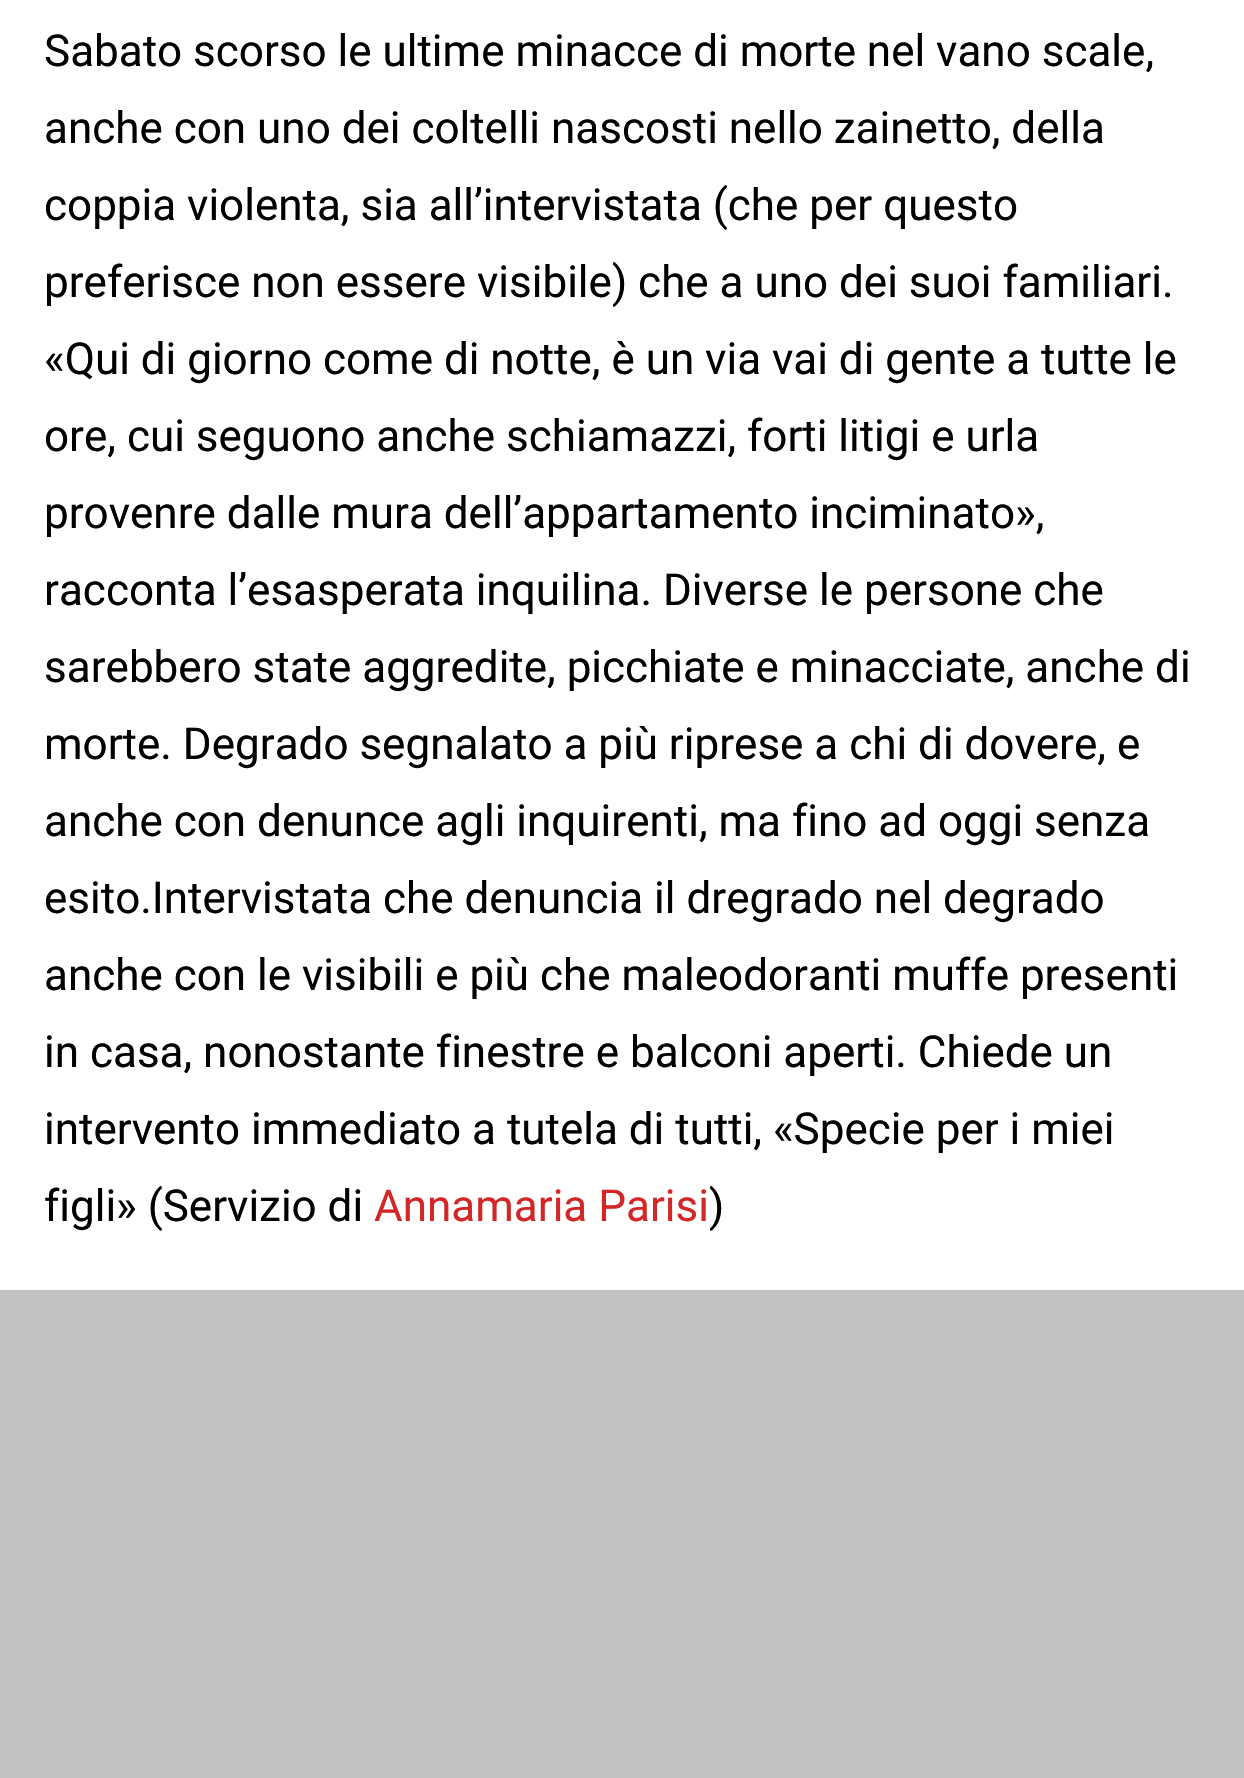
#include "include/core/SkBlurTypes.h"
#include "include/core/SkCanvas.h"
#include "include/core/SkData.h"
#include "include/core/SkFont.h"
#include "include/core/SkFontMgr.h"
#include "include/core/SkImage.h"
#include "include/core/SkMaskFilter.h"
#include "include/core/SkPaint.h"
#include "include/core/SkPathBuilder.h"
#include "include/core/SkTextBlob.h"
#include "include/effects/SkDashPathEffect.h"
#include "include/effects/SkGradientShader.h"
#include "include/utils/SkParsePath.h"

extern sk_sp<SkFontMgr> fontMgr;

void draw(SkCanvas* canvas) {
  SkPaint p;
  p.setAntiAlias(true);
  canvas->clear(SK_ColorWHITE);
  p.setColor(SkColorSetRGB(194, 194, 194));
  canvas->drawRect(SkRect::MakeLTRB(0, 1290, 1244, 1778), p);
  SkFont font1(fontMgr->matchFamilyStyle("Roboto", SkFontStyle::Normal()), 44);
  font1.setSubpixel(true);
  p.setColor(SK_ColorBLACK);
  canvas->drawString("Sabato scorso le ultime minacce di morte nel vano scale,", 44, 66, font1, p);
  canvas->drawString("anche con uno dei coltelli nascosti nello zainetto, della", 44, 143, font1, p);
  canvas->drawString("coppia violenta, sia all’intervistata (che per questo", 44, 220, font1, p);
  canvas->drawString("preferisce non essere visibile) che a uno dei suoi familiari.", 44, 297, font1, p);
  canvas->drawString("«Qui di giorno come di notte, è un via vai di gente a tutte le", 44, 374, font1, p);
  canvas->drawString("ore, cui seguono anche schiamazzi, forti litigi e urla", 44, 451, font1, p);
  canvas->drawString("provenre dalle mura dell’appartamento inciminato»,", 44, 528, font1, p);
  canvas->drawString("racconta l’esasperata inquilina. Diverse le persone che", 44, 605, font1, p);
  canvas->drawString("sarebbero state aggredite, picchiate e minacciate, anche di", 44, 682, font1, p);
  canvas->drawString("morte. Degrado segnalato a più riprese a chi di dovere, e", 44, 759, font1, p);
  canvas->drawString("anche con denunce agli inquirenti, ma fino ad oggi senza", 44, 836, font1, p);
  canvas->drawString("esito.Intervistata che denuncia il dregrado nel degrado", 44, 913, font1, p);
  canvas->drawString("anche con le visibili e più che maleodoranti muffe presenti", 44, 990, font1, p);
  canvas->drawString("in casa, nonostante finestre e balconi aperti. Chiede un", 44, 1067, font1, p);
  canvas->drawString("intervento immediato a tutela di tutti, «Specie per i miei", 44, 1144, font1, p);
  canvas->drawString("figli» (Servizio di", 44, 1221, font1, p);
  p.setColor(SkColorSetRGB(210, 38, 39));
  canvas->drawString("Annamaria Parisi", 374, 1221, font1, p);
  p.setColor(SK_ColorBLACK);
  canvas->drawString(")", 709, 1221, font1, p);
}
